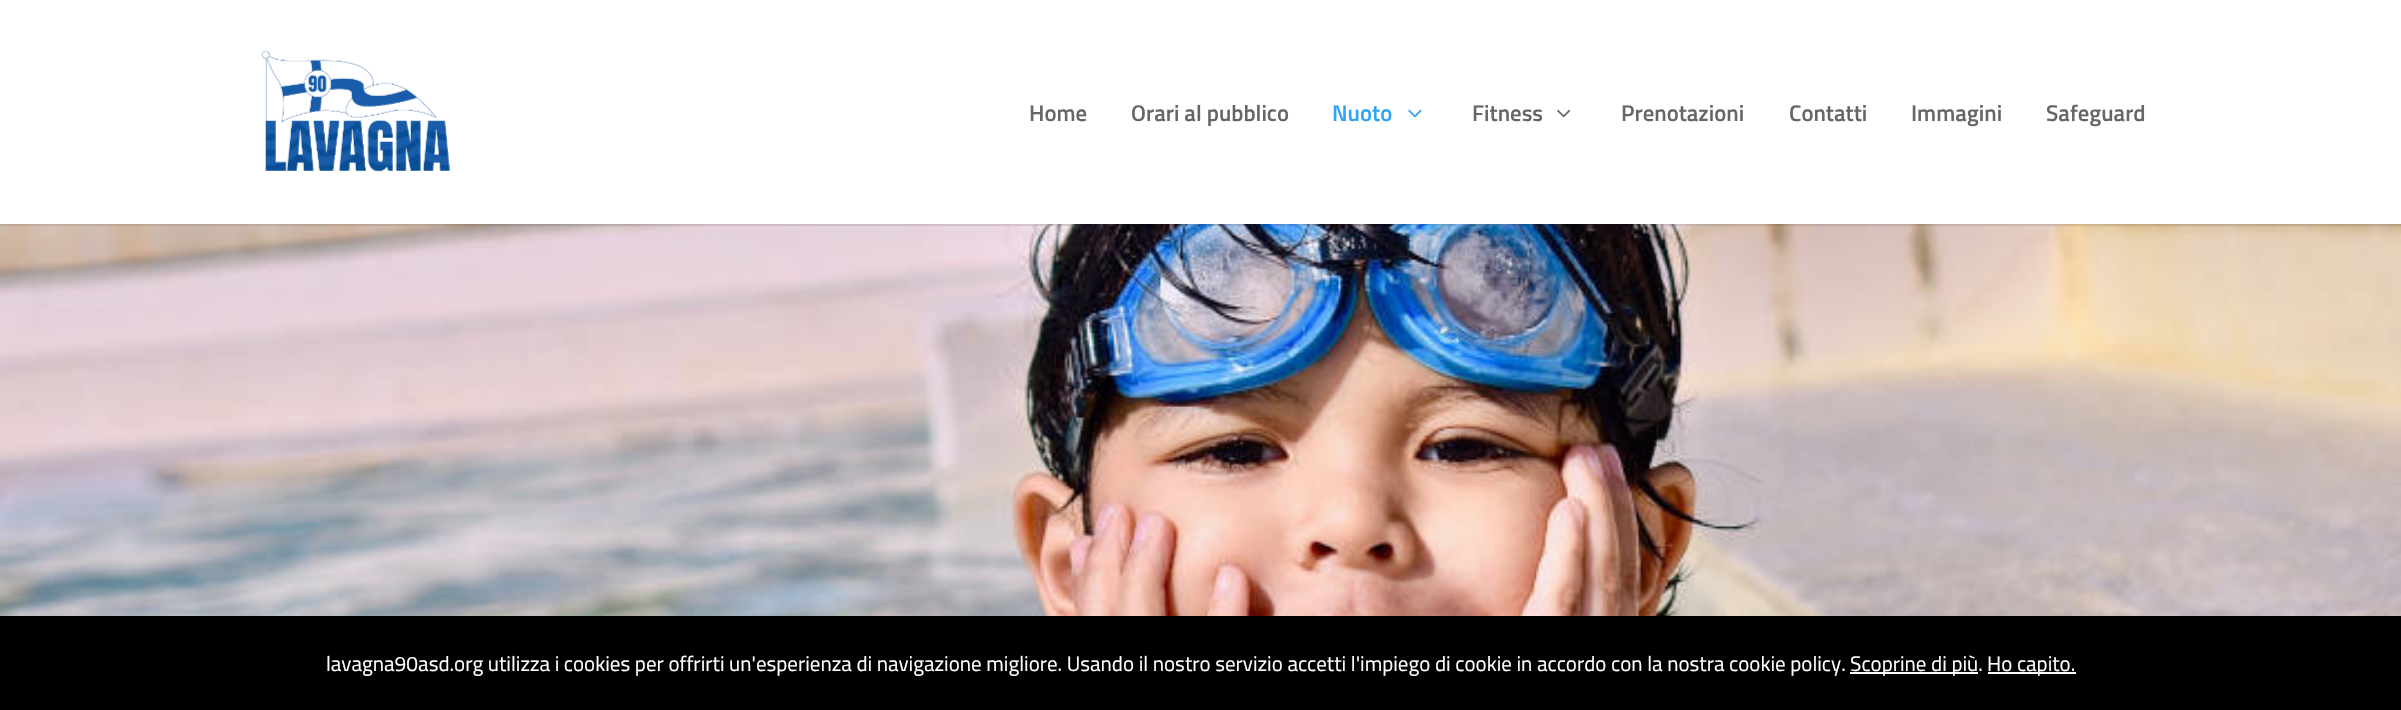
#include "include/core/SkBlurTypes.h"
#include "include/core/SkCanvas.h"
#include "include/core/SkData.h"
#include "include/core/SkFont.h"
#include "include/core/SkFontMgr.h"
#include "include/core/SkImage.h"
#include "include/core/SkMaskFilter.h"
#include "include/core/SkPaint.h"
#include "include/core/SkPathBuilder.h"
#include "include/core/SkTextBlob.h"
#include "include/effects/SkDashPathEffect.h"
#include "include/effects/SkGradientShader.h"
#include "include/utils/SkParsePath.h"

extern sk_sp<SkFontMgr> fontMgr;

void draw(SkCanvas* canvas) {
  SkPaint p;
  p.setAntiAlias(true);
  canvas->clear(SK_ColorWHITE);
  canvas->drawImageRect(SkImages::DeferredFromEncodedData(SkData::MakeFromFileName("images/4.png")), SkRect::MakeLTRB(0, 224, 2401, 616), SkSamplingOptions());
  p.setColor(SkColorSetARGB(26, 0, 0, 0));
  canvas->drawRect(SkRect::MakeLTRB(0, 224, 2401, 226), p);
  canvas->drawImageRect(SkImages::DeferredFromEncodedData(SkData::MakeFromFileName("images/1.png")), SkRect::MakeLTRB(261, 50, 450, 172), SkSamplingOptions());
  canvas->drawImageRect(SkImages::DeferredFromEncodedData(SkData::MakeFromFileName("images/2.png")), SkRect::MakeLTRB(1408, 109, 1422, 118), SkSamplingOptions());
  canvas->drawImageRect(SkImages::DeferredFromEncodedData(SkData::MakeFromFileName("images/3.png")), SkRect::MakeLTRB(1557, 109, 1571, 118), SkSamplingOptions());
  p.setColor(SK_ColorBLACK);
  canvas->drawRect(SkRect::MakeLTRB(0, 616, 2401, 710), p);
  p.setColor(SK_ColorWHITE);
  canvas->drawRect(SkRect::MakeLTRB(1850, 672, 1978, 674), p);
  canvas->drawRect(SkRect::MakeLTRB(1988, 672, 2076, 674), p);
  SkFont font1(fontMgr->matchFamilyStyle("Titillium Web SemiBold", SkFontStyle(600, SkFontStyle::kNormal_Width, SkFontStyle::kUpright_Slant)), 22.75f);
  font1.setSubpixel(true);
  p.setColor(SkColorSetRGB(102, 102, 102));
  canvas->drawString("Home", 1029, 121, font1, p);
  canvas->drawString("Orari al pubblico", 1131, 121, font1, p);
  p.setColor(SkColorSetRGB(46, 163, 242));
  canvas->drawString("Nuoto", 1332, 121, font1, p);
  p.setColor(SkColorSetRGB(102, 102, 102));
  canvas->drawString("Fitness", 1472, 121, font1, p);
  canvas->drawString("Prenotazioni", 1621, 121, font1, p);
  canvas->drawString("Contatti", 1789, 121, font1, p);
  canvas->drawString("Immagini", 1911, 121, font1, p);
  canvas->drawString("Safeguard", 2046, 121, font1, p);
  SkFont font2(fontMgr->matchFamilyStyle("Titillium Web", SkFontStyle::Normal()), 21);
  font2.setSubpixel(true);
  p.setColor(SK_ColorWHITE);
  canvas->drawString("lavagna90asd.org utilizza i cookies per offrirti un'esperienza di navigazione migliore. Usando il nostro servizio accetti l'impiego di cookie in accordo con la nostra cookie policy.", 326, 671, font2, p);
  canvas->drawString("Scoprine di più.", 1850, 671, font2, p);
  canvas->drawString("Ho capito.", 1987, 671, font2, p);
}
